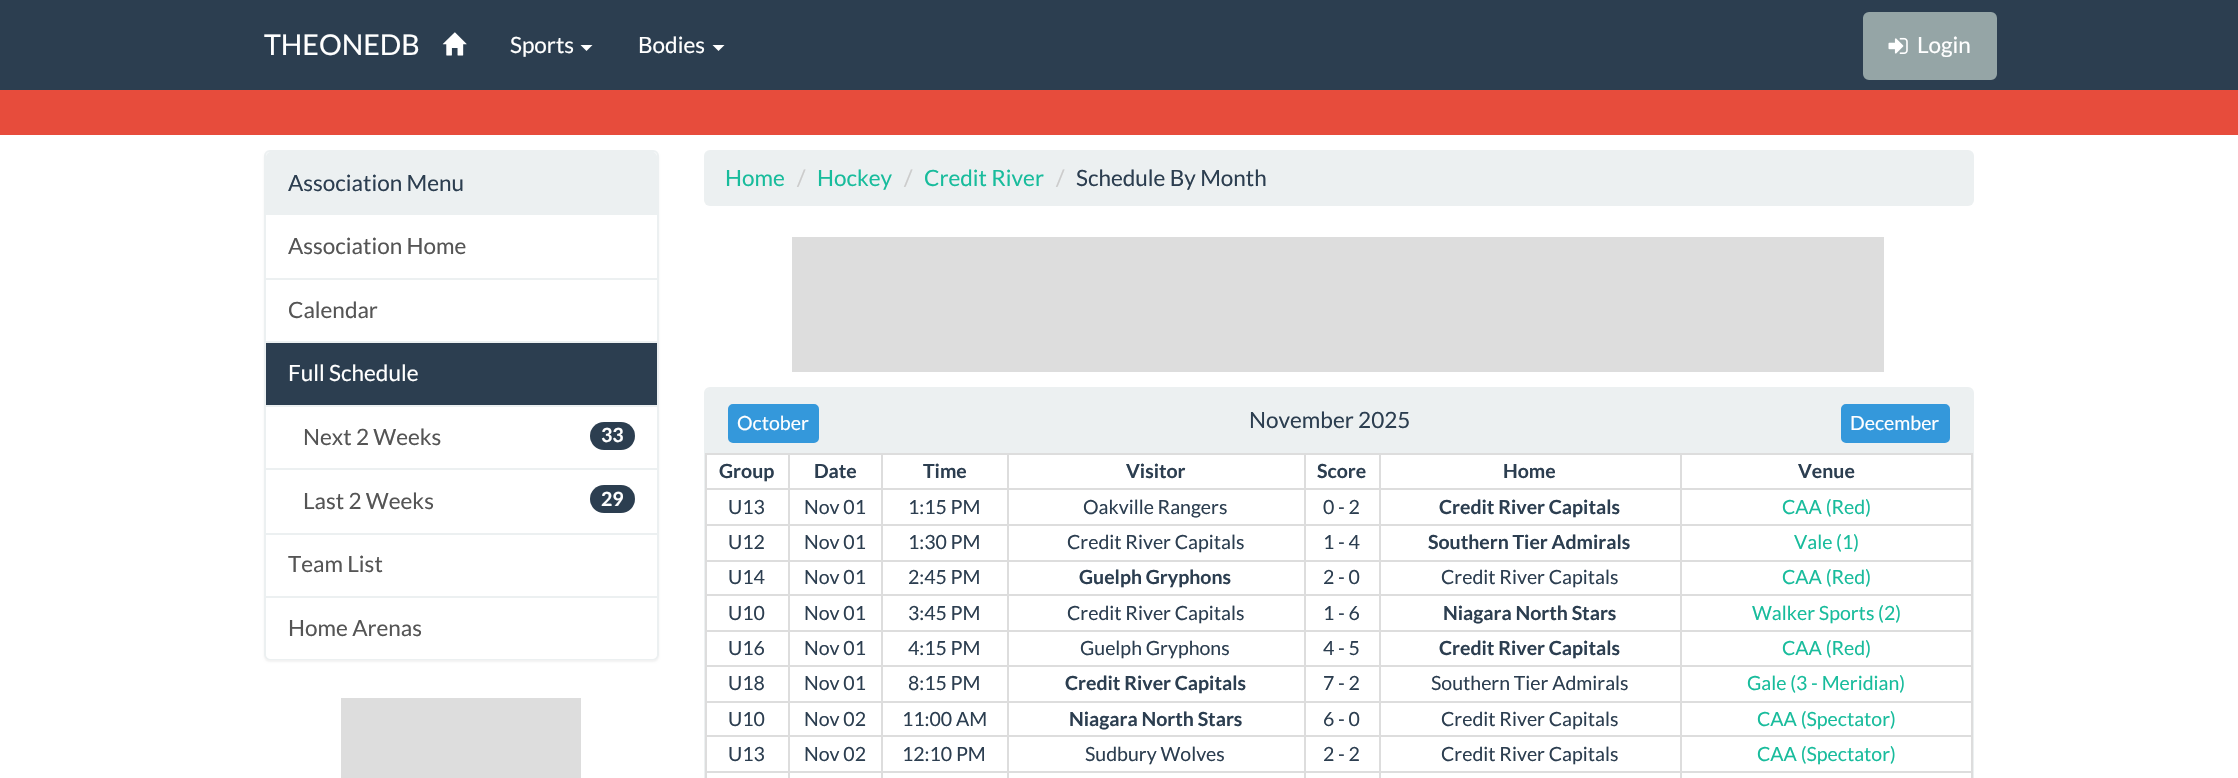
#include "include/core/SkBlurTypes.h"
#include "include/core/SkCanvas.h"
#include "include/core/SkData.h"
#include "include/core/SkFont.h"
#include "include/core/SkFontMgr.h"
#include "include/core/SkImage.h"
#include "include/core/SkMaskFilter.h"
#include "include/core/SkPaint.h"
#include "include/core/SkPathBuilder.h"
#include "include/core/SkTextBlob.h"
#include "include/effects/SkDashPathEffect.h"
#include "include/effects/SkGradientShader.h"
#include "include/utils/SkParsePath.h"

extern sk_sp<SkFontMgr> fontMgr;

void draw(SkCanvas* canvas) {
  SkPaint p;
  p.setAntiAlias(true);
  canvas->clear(SK_ColorWHITE);
  p.setColor(SkColorSetRGB(44, 62, 80));
  canvas->drawRect(SkRect::MakeLTRB(0, 0, 2238, 90), p);
  canvas->drawImageRect(SkImages::DeferredFromEncodedData(SkData::MakeFromFileName("images/1.png")), SkRect::MakeLTRB(442, 32, 467, 56), SkSamplingOptions());
  p.setColor(SK_ColorWHITE);
  canvas->drawPath(SkPathBuilder().moveTo(580.5f, 45).lineTo(592.5f, 45).lineTo(586.5f, 51).close().detach(), p);
  canvas->drawPath(SkPathBuilder().moveTo(712.5f, 45).lineTo(724.5f, 45).lineTo(718.5f, 51).close().detach(), p);
  p.setColor(SkColorSetRGB(149, 165, 166));
  canvas->drawRoundRect(SkRect::MakeLTRB(1864.5f, 13.5f, 1995.5f, 78.5f), 4.5f, 4.5f, p);
  p.setStyle(SkPaint::kStroke_Style);
  p.setStrokeWidth(3);
  canvas->drawRoundRect(SkRect::MakeLTRB(1864.5f, 13.5f, 1995.5f, 78.5f), 4.5f, 4.5f, p);
  canvas->drawImageRect(SkImages::DeferredFromEncodedData(SkData::MakeFromFileName("images/2.png")), SkRect::MakeLTRB(1888, 37, 1908, 54), SkSamplingOptions());
  p.setStyle(SkPaint::kFill_Style);
  p.setColor(SkColorSetRGB(231, 76, 60));
  canvas->drawRect(SkRect::MakeLTRB(0, 90, 2238, 135), p);
  p.setColor(SkColorSetARGB(13, 0, 0, 0));
  p.setMaskFilter(SkMaskFilter::MakeBlur(kNormal_SkBlurStyle, 1));
  canvas->drawRoundRect(SkRect::MakeLTRB(264, 152, 659, 662), 6, 6, p);
  p.setMaskFilter(nullptr);
  p.setColor(SK_ColorWHITE);
  canvas->drawRoundRect(SkRect::MakeLTRB(265, 151, 658, 659), 5, 5, p);
  p.setStyle(SkPaint::kStroke_Style);
  p.setStrokeWidth(2);
  p.setColor(SkColorSetRGB(236, 240, 241));
  canvas->drawRoundRect(SkRect::MakeLTRB(265, 151, 658, 659), 5, 5, p);
  p.setStyle(SkPaint::kFill_Style);
  canvas->drawPath(SkPathBuilder().moveTo(271, 152).lineTo(652, 152).cubicTo(655, 152, 657, 154, 657, 157).lineTo(657, 215).lineTo(266, 215).lineTo(266, 157).cubicTo(266, 154, 268, 152, 271, 152).close().detach(), p);
  canvas->drawRect(SkRect::MakeLTRB(266, 278, 657, 280), p);
  p.setColor(SkColorSetRGB(44, 62, 80));
  canvas->drawRect(SkRect::MakeLTRB(266, 343, 657, 405), p);
  p.setColor(SkColorSetRGB(236, 240, 241));
  canvas->drawRect(SkRect::MakeLTRB(266, 341, 657, 343), p);
  canvas->drawRect(SkRect::MakeLTRB(266, 405, 657, 407), p);
  canvas->drawRect(SkRect::MakeLTRB(266, 468, 657, 470), p);
  p.setColor(SkColorSetRGB(44, 62, 80));
  canvas->drawRoundRect(SkRect::MakeLTRB(590, 422, 635, 450), 14, 14, p);
  canvas->drawRoundRect(SkRect::MakeLTRB(590, 485, 635, 513), 14, 14, p);
  p.setColor(SkColorSetRGB(236, 240, 241));
  canvas->drawRect(SkRect::MakeLTRB(266, 533, 657, 535), p);
  p.setColor(SK_ColorWHITE);
  canvas->drawPath(SkPathBuilder().moveTo(266, 596).lineTo(657, 596).lineTo(657, 654).cubicTo(657, 657, 655, 659, 652, 659).lineTo(271, 659).cubicTo(268, 659, 266, 657, 266, 654).close().detach(), p);
  p.setColor(SkColorSetRGB(236, 240, 241));
  canvas->drawRect(SkRect::MakeLTRB(266, 596, 657, 598), p);
  p.setColor(SkColorSetRGB(221, 221, 221));
  canvas->drawRect(SkRect::MakeLTRB(341, 698, 581, 778), p);
  p.setColor(SkColorSetRGB(236, 240, 241));
  canvas->drawRoundRect(SkRect::MakeLTRB(704, 150, 1974, 206), 6, 6, p);
  p.setColor(SkColorSetRGB(221, 221, 221));
  canvas->drawRect(SkRect::MakeLTRB(792, 237, 1884, 372), p);
  p.setStyle(SkPaint::kStroke_Style);
  p.setColor(SkColorSetRGB(236, 240, 241));
  canvas->drawRoundRect(SkRect::MakeLTRB(705, 388, 1973, 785), 5, 5, p);
  p.setStyle(SkPaint::kFill_Style);
  canvas->drawPath(SkPathBuilder().moveTo(710, 389).lineTo(1968, 389).cubicTo(1971, 389, 1973, 391, 1973, 394).lineTo(1973, 453).lineTo(705, 453).lineTo(705, 394).cubicTo(705, 391, 707, 389, 710, 389).close().detach(), p);
  p.setColor(SkColorSetRGB(52, 152, 219));
  canvas->drawRoundRect(SkRect::MakeLTRB(729.5f, 405.5f, 817.5f, 441.5f), 3.5f, 3.5f, p);
  p.setStyle(SkPaint::kStroke_Style);
  p.setStrokeWidth(3);
  canvas->drawRoundRect(SkRect::MakeLTRB(729.5f, 405.5f, 817.5f, 441.5f), 3.5f, 3.5f, p);
  p.setStyle(SkPaint::kFill_Style);
  canvas->drawRoundRect(SkRect::MakeLTRB(1842.5f, 405.5f, 1948.5f, 441.5f), 3.5f, 3.5f, p);
  p.setStyle(SkPaint::kStroke_Style);
  canvas->drawRoundRect(SkRect::MakeLTRB(1842.5f, 405.5f, 1948.5f, 441.5f), 3.5f, 3.5f, p);
  p.setStyle(SkPaint::kFill_Style);
  p.setColor(SkColorSetRGB(221, 221, 221));
  canvas->drawRect(SkRect::MakeLTRB(1680, 453, 1973, 455), p);
  canvas->drawRect(SkRect::MakeLTRB(1680, 488, 1973, 490), p);
  canvas->drawRect(SkRect::MakeLTRB(1680, 524, 1973, 526), p);
  canvas->drawRect(SkRect::MakeLTRB(1680, 560, 1973, 562), p);
  canvas->drawRect(SkRect::MakeLTRB(1680, 594, 1973, 596), p);
  canvas->drawRect(SkRect::MakeLTRB(1680, 630, 1973, 632), p);
  canvas->drawRect(SkRect::MakeLTRB(1680, 665, 1973, 667), p);
  canvas->drawRect(SkRect::MakeLTRB(1680, 701, 1973, 703), p);
  canvas->drawRect(SkRect::MakeLTRB(1680, 735, 1973, 737), p);
  canvas->drawRect(SkRect::MakeLTRB(1680, 771, 1973, 773), p);
  canvas->drawRect(SkRect::MakeLTRB(1680, 771, 1682, 778), p);
  canvas->drawRect(SkRect::MakeLTRB(1379, 771, 1682, 773), p);
  canvas->drawRect(SkRect::MakeLTRB(1680, 735, 1682, 773), p);
  canvas->drawRect(SkRect::MakeLTRB(1379, 735, 1682, 737), p);
  canvas->drawRect(SkRect::MakeLTRB(1680, 701, 1682, 737), p);
  canvas->drawRect(SkRect::MakeLTRB(1379, 701, 1682, 703), p);
  canvas->drawRect(SkRect::MakeLTRB(1680, 665, 1682, 702), p);
  canvas->drawRect(SkRect::MakeLTRB(1379, 665, 1682, 667), p);
  canvas->drawRect(SkRect::MakeLTRB(1680, 630, 1682, 666), p);
  canvas->drawRect(SkRect::MakeLTRB(1379, 630, 1682, 632), p);
  canvas->drawRect(SkRect::MakeLTRB(1680, 594, 1682, 632), p);
  canvas->drawRect(SkRect::MakeLTRB(1379, 594, 1682, 596), p);
  canvas->drawRect(SkRect::MakeLTRB(1680, 560, 1682, 596), p);
  canvas->drawRect(SkRect::MakeLTRB(1379, 560, 1682, 562), p);
  canvas->drawRect(SkRect::MakeLTRB(1680, 524, 1682, 561), p);
  canvas->drawRect(SkRect::MakeLTRB(1379, 524, 1682, 526), p);
  canvas->drawRect(SkRect::MakeLTRB(1680, 488, 1682, 525), p);
  canvas->drawRect(SkRect::MakeLTRB(1379, 488, 1682, 490), p);
  canvas->drawRect(SkRect::MakeLTRB(1680, 453, 1682, 489), p);
  canvas->drawRect(SkRect::MakeLTRB(1379, 453, 1682, 455), p);
  canvas->drawRect(SkRect::MakeLTRB(1379, 771, 1381, 778), p);
  canvas->drawRect(SkRect::MakeLTRB(1304, 771, 1380, 773), p);
  canvas->drawRect(SkRect::MakeLTRB(1379, 735, 1381, 773), p);
  canvas->drawRect(SkRect::MakeLTRB(1304, 735, 1380, 737), p);
  canvas->drawRect(SkRect::MakeLTRB(1379, 701, 1381, 737), p);
  canvas->drawRect(SkRect::MakeLTRB(1304, 701, 1380, 703), p);
  canvas->drawRect(SkRect::MakeLTRB(1379, 665, 1381, 702), p);
  canvas->drawRect(SkRect::MakeLTRB(1304, 665, 1380, 667), p);
  canvas->drawRect(SkRect::MakeLTRB(1379, 630, 1381, 666), p);
  canvas->drawRect(SkRect::MakeLTRB(1304, 630, 1380, 632), p);
  canvas->drawRect(SkRect::MakeLTRB(1379, 594, 1381, 632), p);
  canvas->drawRect(SkRect::MakeLTRB(1304, 594, 1380, 596), p);
  canvas->drawRect(SkRect::MakeLTRB(1379, 560, 1381, 596), p);
  canvas->drawRect(SkRect::MakeLTRB(1304, 560, 1380, 562), p);
  canvas->drawRect(SkRect::MakeLTRB(1379, 524, 1381, 561), p);
  canvas->drawRect(SkRect::MakeLTRB(1304, 524, 1380, 526), p);
  canvas->drawRect(SkRect::MakeLTRB(1379, 488, 1381, 525), p);
  canvas->drawRect(SkRect::MakeLTRB(1304, 488, 1380, 490), p);
  canvas->drawRect(SkRect::MakeLTRB(1379, 453, 1381, 489), p);
  canvas->drawRect(SkRect::MakeLTRB(1304, 453, 1380, 455), p);
  canvas->drawRect(SkRect::MakeLTRB(1304, 771, 1306, 778), p);
  canvas->drawRect(SkRect::MakeLTRB(1007, 771, 1305, 773), p);
  canvas->drawRect(SkRect::MakeLTRB(1304, 735, 1306, 773), p);
  canvas->drawRect(SkRect::MakeLTRB(1007, 735, 1305, 737), p);
  canvas->drawRect(SkRect::MakeLTRB(1304, 701, 1306, 737), p);
  canvas->drawRect(SkRect::MakeLTRB(1007, 701, 1305, 703), p);
  canvas->drawRect(SkRect::MakeLTRB(1304, 665, 1306, 702), p);
  canvas->drawRect(SkRect::MakeLTRB(1007, 665, 1305, 667), p);
  canvas->drawRect(SkRect::MakeLTRB(1304, 630, 1306, 666), p);
  canvas->drawRect(SkRect::MakeLTRB(1007, 630, 1305, 632), p);
  canvas->drawRect(SkRect::MakeLTRB(1304, 594, 1306, 632), p);
  canvas->drawRect(SkRect::MakeLTRB(1007, 594, 1305, 596), p);
  canvas->drawRect(SkRect::MakeLTRB(1304, 560, 1306, 596), p);
  canvas->drawRect(SkRect::MakeLTRB(1007, 560, 1305, 562), p);
  canvas->drawRect(SkRect::MakeLTRB(1304, 524, 1306, 561), p);
  canvas->drawRect(SkRect::MakeLTRB(1007, 524, 1305, 526), p);
  canvas->drawRect(SkRect::MakeLTRB(1304, 488, 1306, 525), p);
  canvas->drawRect(SkRect::MakeLTRB(1007, 488, 1305, 490), p);
  canvas->drawRect(SkRect::MakeLTRB(1304, 453, 1306, 489), p);
  canvas->drawRect(SkRect::MakeLTRB(1007, 453, 1305, 455), p);
  canvas->drawRect(SkRect::MakeLTRB(1007, 771, 1009, 778), p);
  canvas->drawRect(SkRect::MakeLTRB(881, 771, 1008, 773), p);
  canvas->drawRect(SkRect::MakeLTRB(1007, 735, 1009, 773), p);
  canvas->drawRect(SkRect::MakeLTRB(881, 735, 1008, 737), p);
  canvas->drawRect(SkRect::MakeLTRB(1007, 701, 1009, 737), p);
  canvas->drawRect(SkRect::MakeLTRB(881, 701, 1008, 703), p);
  canvas->drawRect(SkRect::MakeLTRB(1007, 665, 1009, 702), p);
  canvas->drawRect(SkRect::MakeLTRB(881, 665, 1008, 667), p);
  canvas->drawRect(SkRect::MakeLTRB(1007, 630, 1009, 666), p);
  canvas->drawRect(SkRect::MakeLTRB(881, 630, 1008, 632), p);
  canvas->drawRect(SkRect::MakeLTRB(1007, 594, 1009, 632), p);
  canvas->drawRect(SkRect::MakeLTRB(881, 594, 1008, 596), p);
  canvas->drawRect(SkRect::MakeLTRB(1007, 560, 1009, 596), p);
  canvas->drawRect(SkRect::MakeLTRB(881, 560, 1008, 562), p);
  canvas->drawRect(SkRect::MakeLTRB(1007, 524, 1009, 561), p);
  canvas->drawRect(SkRect::MakeLTRB(881, 524, 1008, 526), p);
  canvas->drawRect(SkRect::MakeLTRB(1007, 488, 1009, 525), p);
  canvas->drawRect(SkRect::MakeLTRB(881, 488, 1008, 490), p);
  canvas->drawRect(SkRect::MakeLTRB(1007, 453, 1009, 489), p);
  canvas->drawRect(SkRect::MakeLTRB(881, 453, 1008, 455), p);
  canvas->drawRect(SkRect::MakeLTRB(881, 771, 883, 778), p);
  canvas->drawRect(SkRect::MakeLTRB(788, 771, 882, 773), p);
  canvas->drawRect(SkRect::MakeLTRB(881, 735, 883, 773), p);
  canvas->drawRect(SkRect::MakeLTRB(788, 735, 882, 737), p);
  canvas->drawRect(SkRect::MakeLTRB(881, 701, 883, 737), p);
  canvas->drawRect(SkRect::MakeLTRB(788, 701, 882, 703), p);
  canvas->drawRect(SkRect::MakeLTRB(881, 665, 883, 702), p);
  canvas->drawRect(SkRect::MakeLTRB(788, 665, 882, 667), p);
  canvas->drawRect(SkRect::MakeLTRB(881, 630, 883, 666), p);
  canvas->drawRect(SkRect::MakeLTRB(788, 630, 882, 632), p);
  canvas->drawRect(SkRect::MakeLTRB(881, 594, 883, 632), p);
  canvas->drawRect(SkRect::MakeLTRB(788, 594, 882, 596), p);
  canvas->drawRect(SkRect::MakeLTRB(881, 560, 883, 596), p);
  canvas->drawRect(SkRect::MakeLTRB(788, 560, 882, 562), p);
  canvas->drawRect(SkRect::MakeLTRB(881, 524, 883, 561), p);
  canvas->drawRect(SkRect::MakeLTRB(788, 524, 882, 526), p);
  canvas->drawRect(SkRect::MakeLTRB(881, 488, 883, 525), p);
  canvas->drawRect(SkRect::MakeLTRB(788, 488, 882, 490), p);
  canvas->drawRect(SkRect::MakeLTRB(881, 453, 883, 489), p);
  canvas->drawRect(SkRect::MakeLTRB(788, 453, 882, 455), p);
  canvas->drawRect(SkRect::MakeLTRB(788, 771, 790, 778), p);
  canvas->drawRect(SkRect::MakeLTRB(705, 771, 789, 773), p);
  canvas->drawRect(SkRect::MakeLTRB(788, 735, 790, 773), p);
  canvas->drawRect(SkRect::MakeLTRB(705, 735, 789, 737), p);
  canvas->drawRect(SkRect::MakeLTRB(788, 701, 790, 737), p);
  canvas->drawRect(SkRect::MakeLTRB(705, 701, 789, 703), p);
  canvas->drawRect(SkRect::MakeLTRB(788, 665, 790, 702), p);
  canvas->drawRect(SkRect::MakeLTRB(705, 665, 789, 667), p);
  canvas->drawRect(SkRect::MakeLTRB(788, 630, 790, 666), p);
  canvas->drawRect(SkRect::MakeLTRB(705, 630, 789, 632), p);
  canvas->drawRect(SkRect::MakeLTRB(788, 594, 790, 632), p);
  canvas->drawRect(SkRect::MakeLTRB(705, 594, 789, 596), p);
  canvas->drawRect(SkRect::MakeLTRB(788, 560, 790, 596), p);
  canvas->drawRect(SkRect::MakeLTRB(705, 560, 789, 562), p);
  canvas->drawRect(SkRect::MakeLTRB(788, 524, 790, 561), p);
  canvas->drawRect(SkRect::MakeLTRB(705, 524, 789, 526), p);
  canvas->drawRect(SkRect::MakeLTRB(788, 488, 790, 525), p);
  canvas->drawRect(SkRect::MakeLTRB(705, 488, 789, 490), p);
  canvas->drawRect(SkRect::MakeLTRB(788, 453, 790, 489), p);
  canvas->drawRect(SkRect::MakeLTRB(705, 453, 789, 455), p);
  canvas->drawRect(SkRect::MakeLTRB(705, 771, 707, 778), p);
  canvas->drawRect(SkRect::MakeLTRB(705, 735, 707, 773), p);
  canvas->drawRect(SkRect::MakeLTRB(705, 701, 707, 737), p);
  canvas->drawRect(SkRect::MakeLTRB(705, 665, 707, 702), p);
  canvas->drawRect(SkRect::MakeLTRB(705, 630, 707, 666), p);
  canvas->drawRect(SkRect::MakeLTRB(705, 594, 707, 632), p);
  canvas->drawRect(SkRect::MakeLTRB(705, 560, 707, 596), p);
  canvas->drawRect(SkRect::MakeLTRB(705, 524, 707, 561), p);
  canvas->drawRect(SkRect::MakeLTRB(705, 488, 707, 525), p);
  canvas->drawRect(SkRect::MakeLTRB(705, 453, 707, 489), p);
  canvas->drawRect(SkRect::MakeLTRB(1971, 771, 1973, 778), p);
  canvas->drawRect(SkRect::MakeLTRB(1971, 735, 1973, 773), p);
  canvas->drawRect(SkRect::MakeLTRB(1971, 701, 1973, 737), p);
  canvas->drawRect(SkRect::MakeLTRB(1971, 665, 1973, 702), p);
  canvas->drawRect(SkRect::MakeLTRB(1971, 630, 1973, 666), p);
  canvas->drawRect(SkRect::MakeLTRB(1971, 594, 1973, 632), p);
  canvas->drawRect(SkRect::MakeLTRB(1971, 560, 1973, 596), p);
  canvas->drawRect(SkRect::MakeLTRB(1971, 524, 1973, 561), p);
  canvas->drawRect(SkRect::MakeLTRB(1971, 488, 1973, 525), p);
  canvas->drawRect(SkRect::MakeLTRB(1971, 453, 1973, 489), p);
  SkFont font1(fontMgr->matchFamilyStyle("Lato", SkFontStyle::Normal()), 28.5f);
  font1.setSubpixel(true);
  p.setColor(SK_ColorWHITE);
  canvas->drawString("THEONEDB", 264, 55, font1, p);
  SkFont font2(fontMgr->matchFamilyStyle("Lato", SkFontStyle::Normal()), 22.5f);
  font2.setSubpixel(true);
  canvas->drawString("Sports", 510, 53, font2, p);
  canvas->drawString("Bodies", 638, 53, font2, p);
  canvas->drawString("Login", 1917, 53, font2, p);
  p.setColor(SkColorSetRGB(44, 62, 80));
  canvas->drawString("Association Menu", 288, 191, font2, p);
  p.setColor(SkColorSetRGB(85, 85, 85));
  canvas->drawString("Association Home", 288, 254, font2, p);
  canvas->drawString("Calendar", 288, 318, font2, p);
  p.setColor(SK_ColorWHITE);
  canvas->drawString("Full Schedule", 288, 381, font2, p);
  p.setColor(SkColorSetRGB(85, 85, 85));
  canvas->drawString("Next 2 Weeks", 303, 445, font2, p);
  SkFont font3(fontMgr->matchFamilyStyle("Lato", SkFontStyle::Bold()), 19.5f);
  font3.setSubpixel(true);
  p.setColor(SK_ColorWHITE);
  canvas->drawString("33", 601, 442, font3, p);
  p.setColor(SkColorSetRGB(85, 85, 85));
  canvas->drawString("Last 2 Weeks", 303, 509, font2, p);
  p.setColor(SK_ColorWHITE);
  canvas->drawString("29", 601, 506, font3, p);
  p.setColor(SkColorSetRGB(85, 85, 85));
  canvas->drawString("Team List", 288, 572, font2, p);
  canvas->drawString("Home Arenas", 288, 636, font2, p);
  p.setColor(SkColorSetRGB(24, 188, 156));
  canvas->drawString("Home", 725, 186, font2, p);
  p.setColor(SkColorSetRGB(204, 204, 204));
  canvas->drawString("/", 797, 186, font2, p);
  p.setColor(SkColorSetRGB(24, 188, 156));
  canvas->drawString("Hockey", 817, 186, font2, p);
  p.setColor(SkColorSetRGB(204, 204, 204));
  canvas->drawString("/", 904, 186, font2, p);
  p.setColor(SkColorSetRGB(24, 188, 156));
  canvas->drawString("Credit River", 924, 186, font2, p);
  p.setColor(SkColorSetRGB(204, 204, 204));
  canvas->drawString("/", 1056, 186, font2, p);
  p.setColor(SkColorSetRGB(44, 62, 80));
  canvas->drawString("Schedule By Month", 1076, 186, font2, p);
  SkFont font4(fontMgr->matchFamilyStyle("Lato", SkFontStyle::Normal()), 19.5f);
  font4.setSubpixel(true);
  p.setColor(SK_ColorWHITE);
  canvas->drawString("October", 737, 430, font4, p);
  p.setColor(SkColorSetRGB(44, 62, 80));
  canvas->drawString("November 2025", 1249, 428, font2, p);
  p.setColor(SK_ColorWHITE);
  canvas->drawString("December", 1850, 430, font4, p);
  p.setColor(SkColorSetRGB(44, 62, 80));
  canvas->drawString("Group", 719, 478, font3, p);
  canvas->drawString("Date", 814, 478, font3, p);
  canvas->drawString("Time", 923, 478, font3, p);
  canvas->drawString("Visitor", 1126, 478, font3, p);
  canvas->drawString("Score", 1317, 478, font3, p);
  canvas->drawString("Home", 1503, 478, font3, p);
  canvas->drawString("Venue", 1798, 478, font3, p);
  canvas->drawString("U13", 728, 514, font4, p);
  canvas->drawString("Nov 01", 804, 514, font4, p);
  canvas->drawString("1:15 PM", 908, 514, font4, p);
  canvas->drawString("Oakville Rangers", 1083, 514, font4, p);
  canvas->drawString("0 - 2", 1323, 514, font4, p);
  canvas->drawString("Credit River Capitals", 1439, 514, font3, p);
  p.setColor(SkColorSetRGB(24, 188, 156));
  canvas->drawString("CAA (Red)", 1782, 514, font4, p);
  p.setColor(SkColorSetRGB(44, 62, 80));
  canvas->drawString("U12", 728, 549, font4, p);
  canvas->drawString("Nov 01", 804, 549, font4, p);
  canvas->drawString("1:30 PM", 908, 549, font4, p);
  canvas->drawString("Credit River Capitals", 1067, 549, font4, p);
  canvas->drawString("1 - 4", 1323, 549, font4, p);
  canvas->drawString("Southern Tier Admirals", 1428, 549, font3, p);
  p.setColor(SkColorSetRGB(24, 188, 156));
  canvas->drawString("Vale (1)", 1794, 549, font4, p);
  p.setColor(SkColorSetRGB(44, 62, 80));
  canvas->drawString("U14", 728, 584, font4, p);
  canvas->drawString("Nov 01", 804, 584, font4, p);
  canvas->drawString("2:45 PM", 908, 584, font4, p);
  canvas->drawString("Guelph Gryphons", 1079, 584, font3, p);
  canvas->drawString("2 - 0", 1323, 584, font4, p);
  canvas->drawString("Credit River Capitals", 1441, 584, font4, p);
  p.setColor(SkColorSetRGB(24, 188, 156));
  canvas->drawString("CAA (Red)", 1782, 584, font4, p);
  p.setColor(SkColorSetRGB(44, 62, 80));
  canvas->drawString("U10", 728, 620, font4, p);
  canvas->drawString("Nov 01", 804, 620, font4, p);
  canvas->drawString("3:45 PM", 908, 620, font4, p);
  canvas->drawString("Credit River Capitals", 1067, 620, font4, p);
  canvas->drawString("1 - 6", 1323, 620, font4, p);
  canvas->drawString("Niagara North Stars", 1443, 620, font3, p);
  p.setColor(SkColorSetRGB(24, 188, 156));
  canvas->drawString("Walker Sports (2)", 1752, 620, font4, p);
  p.setColor(SkColorSetRGB(44, 62, 80));
  canvas->drawString("U16", 728, 655, font4, p);
  canvas->drawString("Nov 01", 804, 655, font4, p);
  canvas->drawString("4:15 PM", 908, 655, font4, p);
  canvas->drawString("Guelph Gryphons", 1080, 655, font4, p);
  canvas->drawString("4 - 5", 1323, 655, font4, p);
  canvas->drawString("Credit River Capitals", 1439, 655, font3, p);
  p.setColor(SkColorSetRGB(24, 188, 156));
  canvas->drawString("CAA (Red)", 1782, 655, font4, p);
  p.setColor(SkColorSetRGB(44, 62, 80));
  canvas->drawString("U18", 728, 690, font4, p);
  canvas->drawString("Nov 01", 804, 690, font4, p);
  canvas->drawString("8:15 PM", 908, 690, font4, p);
  canvas->drawString("Credit River Capitals", 1065, 690, font3, p);
  canvas->drawString("7 - 2", 1323, 690, font4, p);
  canvas->drawString("Southern Tier Admirals", 1431, 690, font4, p);
  p.setColor(SkColorSetRGB(24, 188, 156));
  canvas->drawString("Gale (3 - Meridian)", 1747, 690, font4, p);
  p.setColor(SkColorSetRGB(44, 62, 80));
  canvas->drawString("U10", 728, 726, font4, p);
  canvas->drawString("Nov 02", 804, 726, font4, p);
  canvas->drawString("11:00 AM", 902, 726, font4, p);
  canvas->drawString("Niagara North Stars", 1069, 726, font3, p);
  canvas->drawString("6 - 0", 1323, 726, font4, p);
  canvas->drawString("Credit River Capitals", 1441, 726, font4, p);
  p.setColor(SkColorSetRGB(24, 188, 156));
  canvas->drawString("CAA (Spectator)", 1757, 726, font4, p);
  p.setColor(SkColorSetRGB(44, 62, 80));
  canvas->drawString("U13", 728, 761, font4, p);
  canvas->drawString("Nov 02", 804, 761, font4, p);
  canvas->drawString("12:10 PM", 902, 761, font4, p);
  canvas->drawString("Sudbury Wolves", 1085, 761, font4, p);
  canvas->drawString("2 - 2", 1323, 761, font4, p);
  canvas->drawString("Credit River Capitals", 1441, 761, font4, p);
  p.setColor(SkColorSetRGB(24, 188, 156));
  canvas->drawString("CAA (Spectator)", 1757, 761, font4, p);
}
